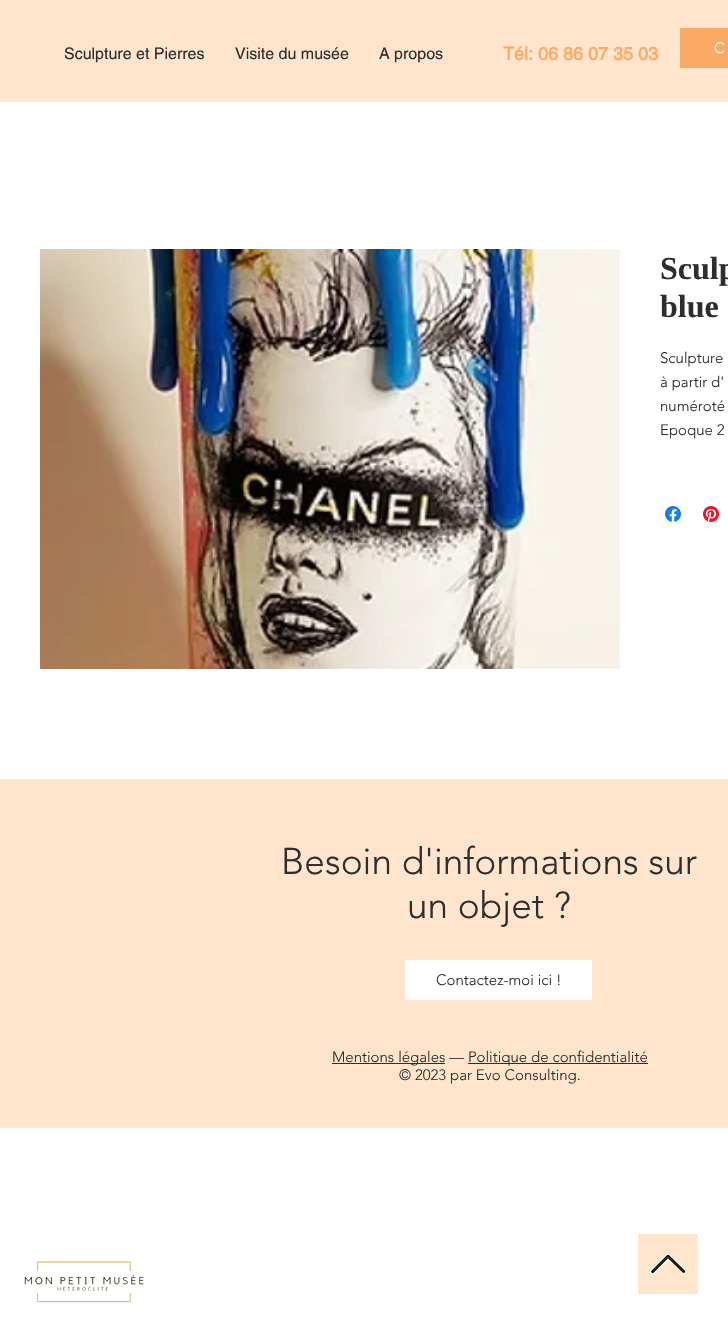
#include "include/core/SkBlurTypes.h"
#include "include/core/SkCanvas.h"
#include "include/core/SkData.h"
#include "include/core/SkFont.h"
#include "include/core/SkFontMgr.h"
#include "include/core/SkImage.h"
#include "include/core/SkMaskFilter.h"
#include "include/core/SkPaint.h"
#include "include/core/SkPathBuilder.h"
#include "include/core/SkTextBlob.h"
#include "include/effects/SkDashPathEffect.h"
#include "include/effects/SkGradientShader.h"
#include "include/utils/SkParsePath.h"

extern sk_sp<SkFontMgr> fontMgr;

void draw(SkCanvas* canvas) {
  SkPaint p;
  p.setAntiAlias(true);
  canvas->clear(SK_ColorWHITE);
  p.setColor(SkColorSetRGB(255, 229, 206));
  canvas->drawRect(SkRect::MakeLTRB(0, 0, 728, 102), p);
  p.setColor(SkColorSetRGB(250, 170, 98));
  canvas->drawRect(SkRect::MakeLTRB(680, 28, 728, 68), p);
  canvas->drawImageRect(SkImages::DeferredFromEncodedData(SkData::MakeFromFileName("images/1.png")), SkRect::MakeLTRB(40, 249, 620, 669), SkSamplingOptions());
  canvas->drawImageRect(SkImages::DeferredFromEncodedData(SkData::MakeFromFileName("images/2.png")), SkRect::MakeLTRB(665, 506, 681, 522), SkSamplingOptions());
  canvas->drawImageRect(SkImages::DeferredFromEncodedData(SkData::MakeFromFileName("images/3.png")), SkRect::MakeLTRB(703, 506, 719, 522), SkSamplingOptions());
  p.setColor(SkColorSetRGB(255, 229, 206));
  canvas->drawRect(SkRect::MakeLTRB(0, 779, 728, 1128), p);
  p.setColor(SK_ColorWHITE);
  canvas->drawRect(SkRect::MakeLTRB(405, 960, 592, 1000), p);
  p.setColor(SkColorSetRGB(47, 46, 46));
  canvas->drawRect(SkRect::MakeLTRB(332, 1063, 445, 1064), p);
  canvas->drawRect(SkRect::MakeLTRB(468, 1063, 648, 1064), p);
  canvas->drawImageRect(SkImages::DeferredFromEncodedData(SkData::MakeFromFileName("images/4.png")), SkRect::MakeLTRB(24, 1261, 144, 1303), SkSamplingOptions());
  canvas->drawImageRect(SkImages::DeferredFromEncodedData(SkData::MakeFromFileName("images/5.png")), SkRect::MakeLTRB(638, 1234, 698, 1294), SkSamplingOptions());
  SkFont font1(fontMgr->matchFamilyStyle("helvetica", SkFontStyle::Normal()), 16);
  font1.setSubpixel(true);
  canvas->drawString("Sculpture et Pierres", 64, 59, font1, p);
  canvas->drawString("Visite du musée", 235, 59, font1, p);
  canvas->drawString("A propos", 379, 59, font1, p);
  SkFont font2(fontMgr->matchFamilyStyle("helvetica", SkFontStyle::Bold()), 18);
  font2.setSubpixel(true);
  p.setColor(SkColorSetRGB(250, 170, 98));
  canvas->drawString("Tél: 06 86 07 35 03", 503, 60, font2, p);
  SkFont font3(fontMgr->matchFamilyStyle("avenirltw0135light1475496", SkFontStyle(300, SkFontStyle::kNormal_Width, SkFontStyle::kUpright_Slant)), 15);
  font3.setSubpixel(true);
  p.setColor(SK_ColorWHITE);
  canvas->drawString("C", 714, 53, font3, p);
  SkFont font4(fontMgr->matchFamilyStyle("Liberation Serif", SkFontStyle::Bold()), 32);
  font4.setSubpixel(true);
  p.setColor(SkColorSetRGB(47, 46, 46));
  canvas->drawString("Sculp", 660, 279, font4, p);
  canvas->drawString("blue", 660, 317, font4, p);
  canvas->drawString("Sculpture", 660, 363, font3, p);
  canvas->drawString("à partir d'", 660, 387, font3, p);
  canvas->drawString("numéroté", 660, 411, font3, p);
  canvas->drawString("Epoque 2", 660, 435, font3, p);
  SkFont font5(fontMgr->matchFamilyStyle("avenirltw0135light1475496", SkFontStyle(300, SkFontStyle::kNormal_Width, SkFontStyle::kUpright_Slant)), 37);
  font5.setSubpixel(true);
  canvas->drawString("Besoin d'informations sur", 281, 874, font5, p);
  canvas->drawString("un objet ?", 407, 918, font5, p);
  canvas->drawString("Contactez-moi ici !", 436, 985, font3, p);
  canvas->drawString("Mentions légales —", 332, 1062, font3, p);
  canvas->drawString("Politique de confidentialité", 468, 1062, font3, p);
  canvas->drawString("© 2023 par Evo Consulting.", 399, 1080, font3, p);
}
